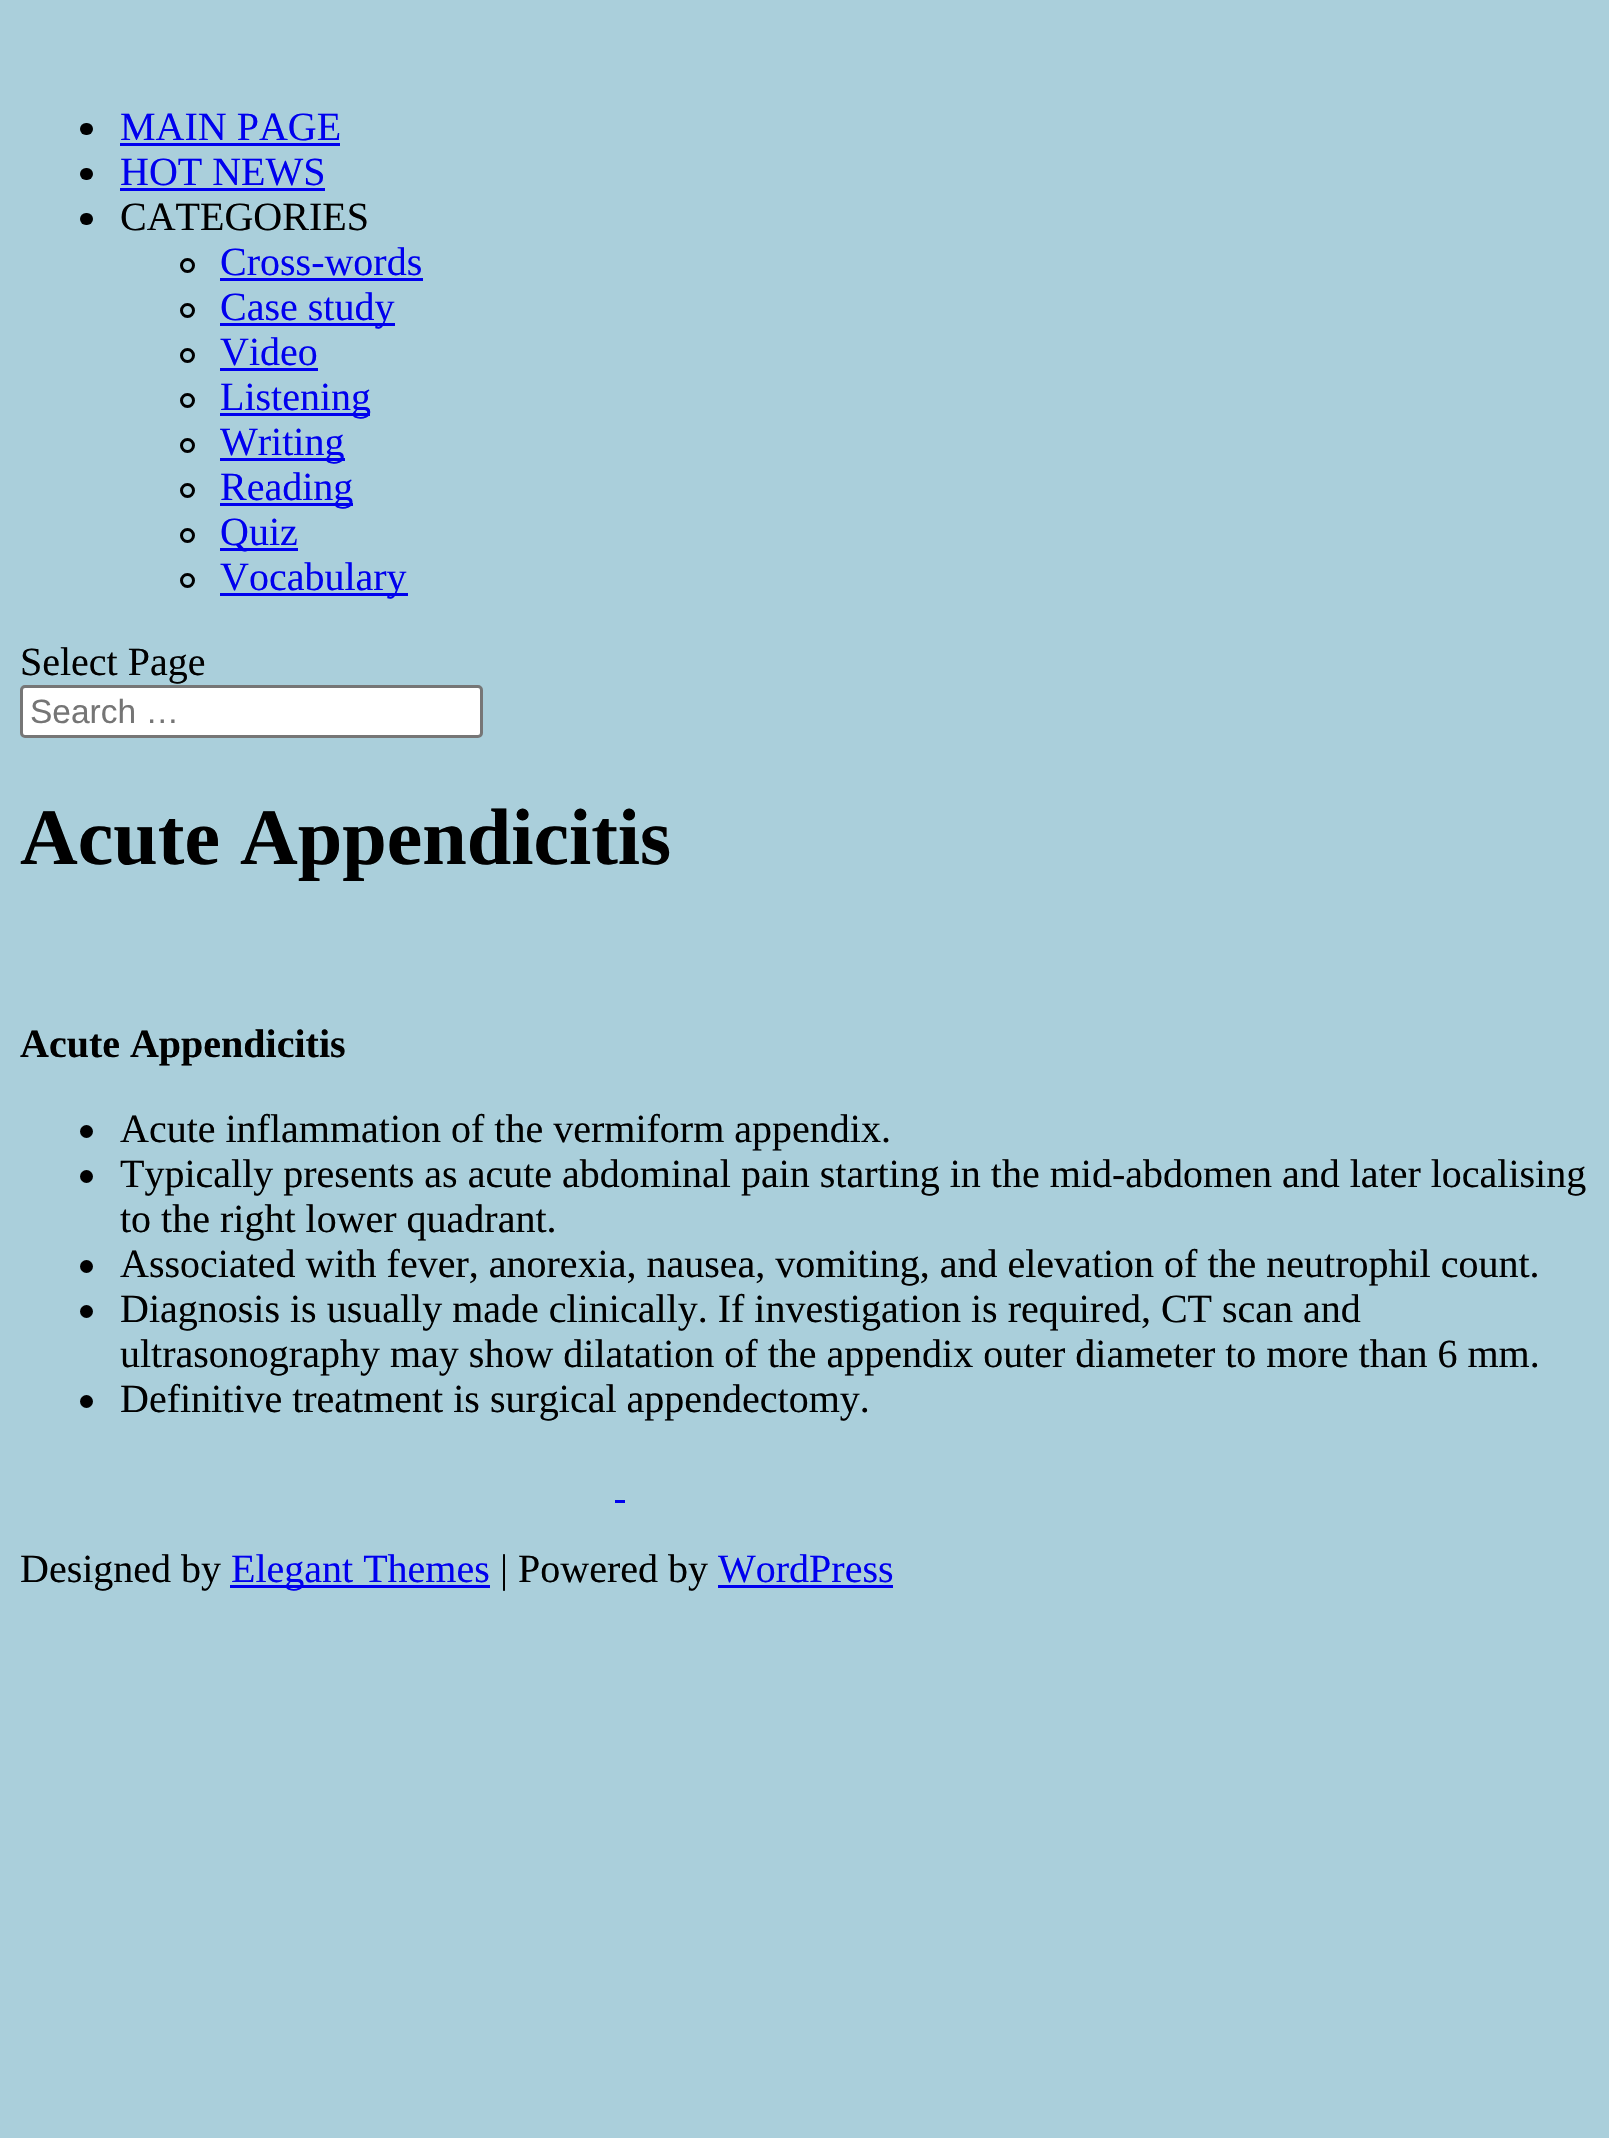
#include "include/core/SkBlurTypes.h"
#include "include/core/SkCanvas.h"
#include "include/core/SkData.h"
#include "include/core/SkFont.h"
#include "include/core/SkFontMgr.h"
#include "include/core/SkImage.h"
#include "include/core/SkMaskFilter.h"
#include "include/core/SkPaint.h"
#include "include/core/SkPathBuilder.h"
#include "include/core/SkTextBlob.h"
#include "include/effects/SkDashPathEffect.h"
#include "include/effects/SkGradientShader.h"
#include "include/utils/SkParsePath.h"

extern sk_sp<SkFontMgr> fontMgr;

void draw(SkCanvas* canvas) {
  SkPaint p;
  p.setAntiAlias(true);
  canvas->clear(SkColorSetRGB(170, 207, 219));
  p.setColor(SK_ColorBLACK);
  canvas->drawRoundRect(SkRect::MakeLTRB(80, 123, 93, 135), 6, 6, p);
  p.setColor(SkColorSetRGB(0, 0, 238));
  canvas->drawRect(SkRect::MakeLTRB(120, 143, 340, 146), p);
  p.setColor(SK_ColorBLACK);
  canvas->drawRoundRect(SkRect::MakeLTRB(80, 168, 93, 180), 6, 6, p);
  p.setColor(SkColorSetRGB(0, 0, 238));
  canvas->drawRect(SkRect::MakeLTRB(120, 188, 325, 191), p);
  p.setColor(SK_ColorBLACK);
  canvas->drawRoundRect(SkRect::MakeLTRB(80, 213, 93, 225), 6, 6, p);
  p.setStyle(SkPaint::kStroke_Style);
  p.setStrokeWidth(3);
  canvas->drawCircle(187.5f, 265.5f, 6, p);
  p.setStyle(SkPaint::kFill_Style);
  p.setColor(SkColorSetRGB(0, 0, 238));
  canvas->drawRect(SkRect::MakeLTRB(220, 278, 423, 281), p);
  p.setStyle(SkPaint::kStroke_Style);
  p.setColor(SK_ColorBLACK);
  canvas->drawCircle(187.5f, 310.5f, 6, p);
  p.setStyle(SkPaint::kFill_Style);
  p.setColor(SkColorSetRGB(0, 0, 238));
  canvas->drawRect(SkRect::MakeLTRB(220, 323, 395, 326), p);
  p.setStyle(SkPaint::kStroke_Style);
  p.setColor(SK_ColorBLACK);
  canvas->drawCircle(187.5f, 355.5f, 6, p);
  p.setStyle(SkPaint::kFill_Style);
  p.setColor(SkColorSetRGB(0, 0, 238));
  canvas->drawRect(SkRect::MakeLTRB(220, 368, 318, 371), p);
  p.setStyle(SkPaint::kStroke_Style);
  p.setColor(SK_ColorBLACK);
  canvas->drawCircle(187.5f, 400.5f, 6, p);
  p.setStyle(SkPaint::kFill_Style);
  p.setColor(SkColorSetRGB(0, 0, 238));
  canvas->drawRect(SkRect::MakeLTRB(220, 413, 370, 416), p);
  p.setStyle(SkPaint::kStroke_Style);
  p.setColor(SK_ColorBLACK);
  canvas->drawCircle(187.5f, 445.5f, 6, p);
  p.setStyle(SkPaint::kFill_Style);
  p.setColor(SkColorSetRGB(0, 0, 238));
  canvas->drawRect(SkRect::MakeLTRB(220, 458, 345, 461), p);
  p.setStyle(SkPaint::kStroke_Style);
  p.setColor(SK_ColorBLACK);
  canvas->drawCircle(187.5f, 490.5f, 6, p);
  p.setStyle(SkPaint::kFill_Style);
  p.setColor(SkColorSetRGB(0, 0, 238));
  canvas->drawRect(SkRect::MakeLTRB(220, 503, 353, 506), p);
  p.setStyle(SkPaint::kStroke_Style);
  p.setColor(SK_ColorBLACK);
  canvas->drawCircle(187.5f, 535.5f, 6, p);
  p.setStyle(SkPaint::kFill_Style);
  p.setColor(SkColorSetRGB(0, 0, 238));
  canvas->drawRect(SkRect::MakeLTRB(220, 548, 298, 551), p);
  p.setStyle(SkPaint::kStroke_Style);
  p.setColor(SK_ColorBLACK);
  canvas->drawCircle(187.5f, 580.5f, 6, p);
  p.setStyle(SkPaint::kFill_Style);
  p.setColor(SkColorSetRGB(0, 0, 238));
  canvas->drawRect(SkRect::MakeLTRB(220, 593, 408, 596), p);
  p.setColor(SK_ColorWHITE);
  canvas->drawRoundRect(SkRect::MakeLTRB(21.5f, 686.5f, 481.5f, 736.5f), 3.5f, 3.5f, p);
  p.setStyle(SkPaint::kStroke_Style);
  p.setColor(SkColorSetRGB(118, 118, 118));
  canvas->drawRoundRect(SkRect::MakeLTRB(21.5f, 686.5f, 481.5f, 736.5f), 3.5f, 3.5f, p);
  p.setStyle(SkPaint::kFill_Style);
  p.setColor(SK_ColorBLACK);
  canvas->drawCircle(86.5f, 1131.5f, 6.5f, p);
  canvas->drawCircle(86.5f, 1176.5f, 6.5f, p);
  canvas->drawCircle(86.5f, 1266.5f, 6.5f, p);
  canvas->drawCircle(86.5f, 1311.5f, 6.5f, p);
  canvas->drawCircle(86.5f, 1401.5f, 6.5f, p);
  p.setColor(SkColorSetRGB(0, 0, 238));
  canvas->drawRect(SkRect::MakeLTRB(615, 1500, 625, 1503), p);
  canvas->drawRect(SkRect::MakeLTRB(230, 1585, 490, 1588), p);
  canvas->drawRect(SkRect::MakeLTRB(718, 1585, 893, 1588), p);
  SkFont font1(fontMgr->matchFamilyStyle("Liberation Serif", SkFontStyle::Normal()), 40);
  font1.setSubpixel(true);
  canvas->drawString("MAIN PAGE", 120, 140, font1, p);
  canvas->drawString("HOT NEWS", 120, 185, font1, p);
  p.setColor(SK_ColorBLACK);
  canvas->drawString("CATEGORIES", 120, 230, font1, p);
  p.setColor(SkColorSetRGB(0, 0, 238));
  canvas->drawString("Cross-words", 220, 275, font1, p);
  canvas->drawString("Case study", 220, 320, font1, p);
  canvas->drawString("Video", 220, 365, font1, p);
  canvas->drawString("Listening", 220, 410, font1, p);
  canvas->drawString("Writing", 220, 455, font1, p);
  canvas->drawString("Reading", 220, 500, font1, p);
  canvas->drawString("Quiz", 220, 545, font1, p);
  canvas->drawString("Vocabulary", 220, 590, font1, p);
  p.setColor(SK_ColorBLACK);
  canvas->drawString("Select Page", 20, 675, font1, p);
  SkFont font2(fontMgr->matchFamilyStyle("Liberation Sans", SkFontStyle::Normal()), 33.5f);
  font2.setSubpixel(true);
  p.setColor(SkColorSetRGB(117, 117, 117));
  canvas->drawString("Search …", 30, 723, font2, p);
  SkFont font3(fontMgr->matchFamilyStyle("Liberation Serif", SkFontStyle::Bold()), 80);
  font3.setSubpixel(true);
  p.setColor(SK_ColorBLACK);
  canvas->drawString("Acute Appendicitis", 20, 864, font3, p);
  SkFont font4(fontMgr->matchFamilyStyle("Liberation Serif", SkFontStyle::Bold()), 40);
  font4.setSubpixel(true);
  canvas->drawString("Acute Appendicitis", 20, 1057, font4, p);
  canvas->drawString("Acute inflammation of the vermiform appendix.", 120, 1142, font1, p);
  canvas->drawString("Typically presents as acute abdominal pain starting in the mid-abdomen and later localising", 120, 1187, font1, p);
  canvas->drawString("to the right lower quadrant.", 120, 1232, font1, p);
  canvas->drawString("Associated with fever, anorexia, nausea, vomiting, and elevation of the neutrophil count.", 120, 1277, font1, p);
  canvas->drawString("Diagnosis is usually made clinically. If investigation is required, CT scan and", 120, 1322, font1, p);
  canvas->drawString("ultrasonography may show dilatation of the appendix outer diameter to more than 6 mm.", 120, 1367, font1, p);
  canvas->drawString("Definitive treatment is surgical appendectomy.", 120, 1412, font1, p);
  canvas->drawString("Designed by", 20, 1582, font1, p);
  p.setColor(SkColorSetRGB(0, 0, 238));
  canvas->drawString("Elegant Themes", 231, 1582, font1, p);
  p.setColor(SK_ColorBLACK);
  canvas->drawString("| Powered by", 500, 1582, font1, p);
  p.setColor(SkColorSetRGB(0, 0, 238));
  canvas->drawString("WordPress", 718, 1582, font1, p);
}
